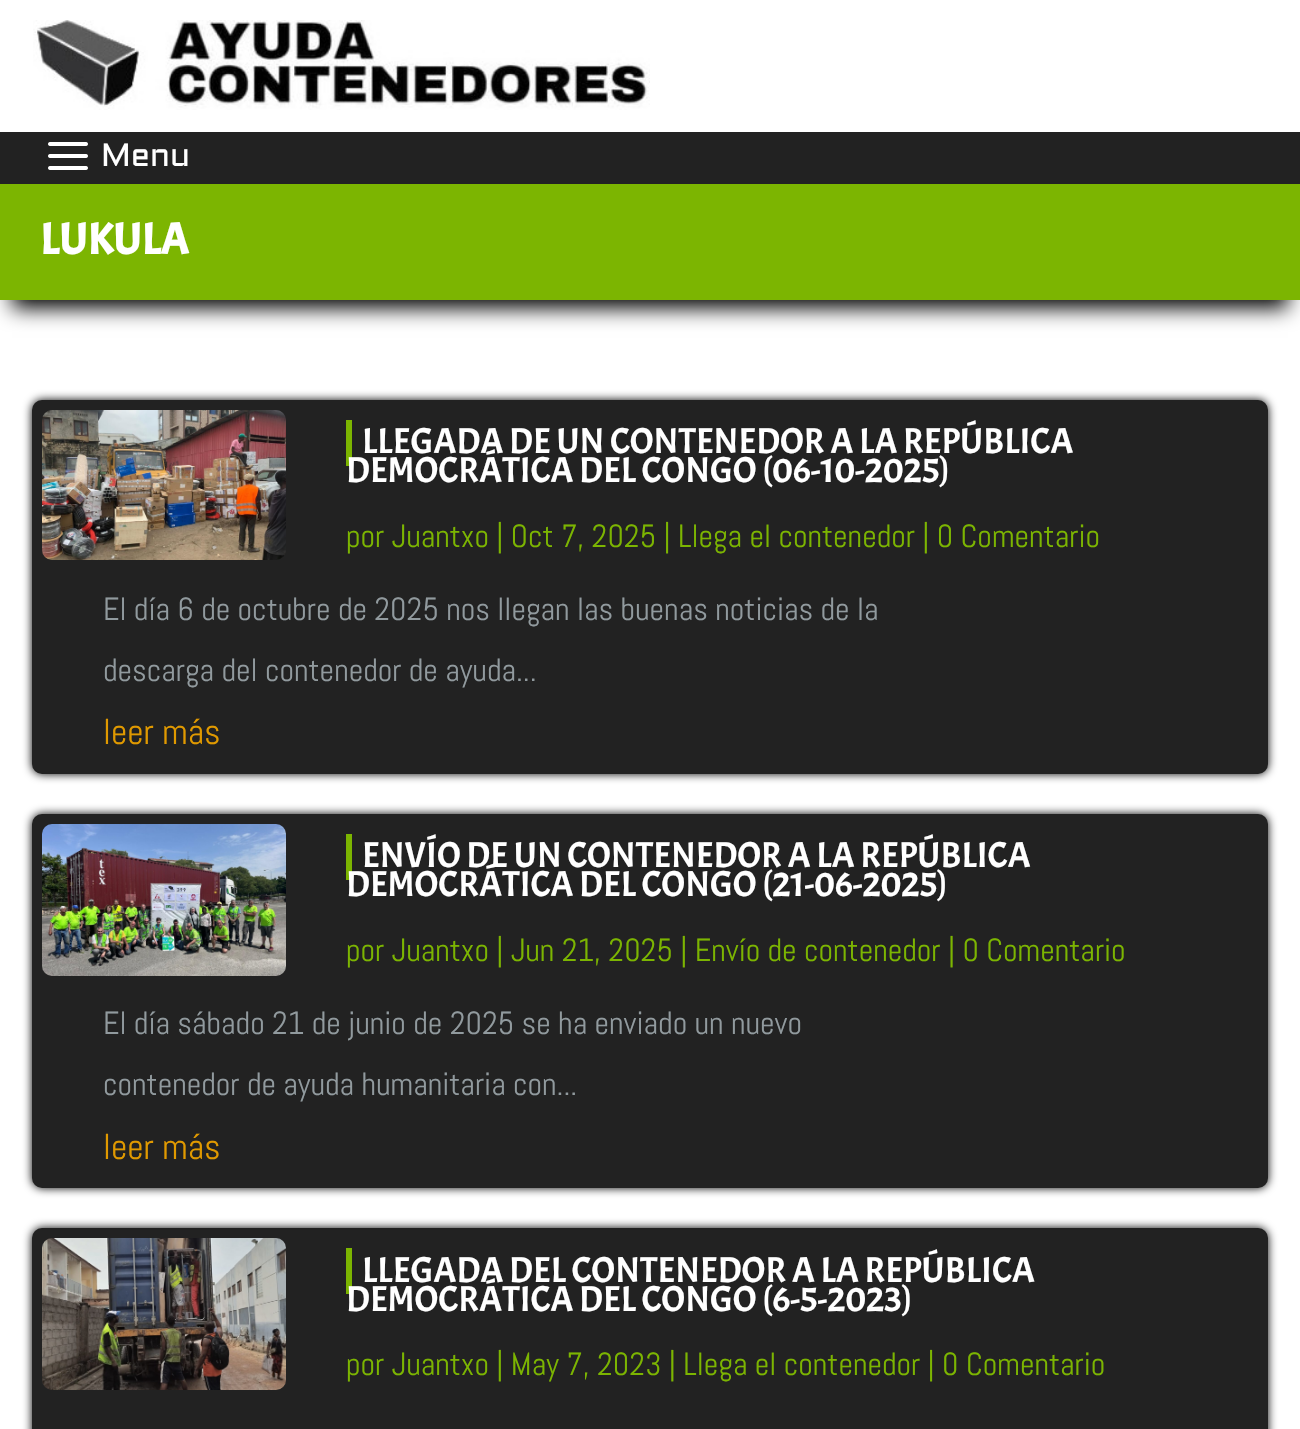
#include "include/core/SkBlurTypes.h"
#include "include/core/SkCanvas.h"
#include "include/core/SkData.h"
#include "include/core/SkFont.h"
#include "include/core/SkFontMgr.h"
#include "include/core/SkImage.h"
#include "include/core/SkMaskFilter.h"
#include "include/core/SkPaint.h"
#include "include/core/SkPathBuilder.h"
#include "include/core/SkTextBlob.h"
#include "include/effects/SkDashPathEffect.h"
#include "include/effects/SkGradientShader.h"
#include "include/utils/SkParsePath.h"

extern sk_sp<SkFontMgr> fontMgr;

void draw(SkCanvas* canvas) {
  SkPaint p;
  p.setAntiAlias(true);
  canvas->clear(SK_ColorWHITE);
  canvas->drawImageRect(SkImages::DeferredFromEncodedData(SkData::MakeFromFileName("images/1.png")), SkRect::MakeLTRB(33, 20, 650, 110), SkSamplingOptions());
  p.setColor(SkColorSetRGB(34, 34, 34));
  canvas->drawRect(SkRect::MakeLTRB(0, 132, 1300, 184), p);
  canvas->drawImageRect(SkImages::DeferredFromEncodedData(SkData::MakeFromFileName("images/2.png")), SkRect::MakeLTRB(48, 142, 88, 170), SkSamplingOptions());
  p.setColor(SK_ColorBLACK);
  p.setMaskFilter(SkMaskFilter::MakeBlur(kNormal_SkBlurStyle, 10));
  canvas->drawRect(SkRect::MakeLTRB(12, 216, 1288, 308), p);
  p.setMaskFilter(nullptr);
  p.setColor(SkColorSetRGB(124, 181, 1));
  canvas->drawRect(SkRect::MakeLTRB(0, 184, 1300, 300), p);
  p.setColor(SK_ColorBLACK);
  p.setMaskFilter(SkMaskFilter::MakeBlur(kNormal_SkBlurStyle, 5));
  canvas->drawRoundRect(SkRect::MakeLTRB(32, 400, 1268, 774), 10, 10, p);
  p.setMaskFilter(nullptr);
  p.setColor(SkColorSetRGB(34, 34, 34));
  canvas->drawRoundRect(SkRect::MakeLTRB(32, 400, 1268, 774), 10, 10, p);
  canvas->drawImageRect(SkImages::DeferredFromEncodedData(SkData::MakeFromFileName("images/3.png")), SkRect::MakeLTRB(42, 410, 286, 560), SkSamplingOptions());
  p.setColor(SkColorSetRGB(124, 181, 1));
  canvas->drawRect(SkRect::MakeLTRB(346, 420, 352, 466), p);
  p.setColor(SK_ColorBLACK);
  p.setMaskFilter(SkMaskFilter::MakeBlur(kNormal_SkBlurStyle, 5));
  canvas->drawRoundRect(SkRect::MakeLTRB(32, 814, 1268, 1188), 10, 10, p);
  p.setMaskFilter(nullptr);
  p.setColor(SkColorSetRGB(34, 34, 34));
  canvas->drawRoundRect(SkRect::MakeLTRB(32, 814, 1268, 1188), 10, 10, p);
  canvas->drawImageRect(SkImages::DeferredFromEncodedData(SkData::MakeFromFileName("images/4.png")), SkRect::MakeLTRB(42, 824, 286, 976), SkSamplingOptions());
  p.setColor(SkColorSetRGB(124, 181, 1));
  canvas->drawRect(SkRect::MakeLTRB(346, 834, 352, 880), p);
  p.setColor(SK_ColorBLACK);
  p.setMaskFilter(SkMaskFilter::MakeBlur(kNormal_SkBlurStyle, 5));
  canvas->drawRoundRect(SkRect::MakeLTRB(32, 1228, 1268, 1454), 10, 10, p);
  p.setMaskFilter(nullptr);
  p.setColor(SkColorSetRGB(34, 34, 34));
  canvas->drawRoundRect(SkRect::MakeLTRB(32, 1228, 1268, 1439), 10, 10, p);
  canvas->drawImageRect(SkImages::DeferredFromEncodedData(SkData::MakeFromFileName("images/5.png")), SkRect::MakeLTRB(42, 1238, 286, 1390), SkSamplingOptions());
  p.setColor(SkColorSetRGB(124, 181, 1));
  canvas->drawRect(SkRect::MakeLTRB(346, 1248, 352, 1294), p);
  SkFont font1(fontMgr->matchFamilyStyle("Aldrich", SkFontStyle::Normal()), 32);
  font1.setSubpixel(true);
  p.setColor(SK_ColorWHITE);
  canvas->drawString("Menu", 101, 166, font1, p);
  SkFont font2(fontMgr->matchFamilyStyle("Acme", SkFontStyle::Bold()), 44);
  font2.setSubpixel(true);
  canvas->drawString("LUKULA", 40, 254, font2, p);
  SkFont font3(fontMgr->matchFamilyStyle("Acme", SkFontStyle::Normal()), 36);
  font3.setSubpixel(true);
  canvas->drawString("LLEGADA DE UN CONTENEDOR A LA REPÚBLICA", 362, 453, font3, p);
  canvas->drawString("DEMOCRÁTICA DEL CONGO (06-10-2025)", 346, 482, font3, p);
  SkFont font4(fontMgr->matchFamilyStyle("Abel", SkFontStyle::Normal()), 32);
  font4.setSubpixel(true);
  p.setColor(SkColorSetRGB(124, 181, 1));
  canvas->drawString("por Juantxo | Oct 7, 2025 | Llega el contenedor | 0 Comentario", 346, 547, font4, p);
  p.setColor(SkColorSetRGB(145, 154, 158));
  canvas->drawString("El día 6 de octubre de 2025 nos llegan las buenas noticias de la", 103, 620, font4, p);
  canvas->drawString("descarga del contenedor de ayuda...", 103, 681, font4, p);
  SkFont font5(fontMgr->matchFamilyStyle("Abel", SkFontStyle::Normal()), 36);
  font5.setSubpixel(true);
  p.setColor(SkColorSetRGB(224, 153, 0));
  canvas->drawString("leer más", 103, 744, font5, p);
  p.setColor(SK_ColorWHITE);
  canvas->drawString("ENVÍO DE UN CONTENEDOR A LA REPÚBLICA", 362, 867, font3, p);
  canvas->drawString("DEMOCRÁTICA DEL CONGO (21-06-2025)", 346, 896, font3, p);
  p.setColor(SkColorSetRGB(124, 181, 1));
  canvas->drawString("por Juantxo | Jun 21, 2025 | Envío de contenedor | 0 Comentario", 346, 961, font4, p);
  p.setColor(SkColorSetRGB(145, 154, 158));
  canvas->drawString("El día sábado 21 de junio de 2025 se ha enviado un nuevo", 103, 1034, font4, p);
  canvas->drawString("contenedor de ayuda humanitaria con...", 103, 1095, font4, p);
  p.setColor(SkColorSetRGB(224, 153, 0));
  canvas->drawString("leer más", 103, 1159, font5, p);
  p.setColor(SK_ColorWHITE);
  canvas->drawString("LLEGADA DEL CONTENEDOR A LA REPÚBLICA", 362, 1282, font3, p);
  canvas->drawString("DEMOCRÁTICA DEL CONGO (6-5-2023)", 346, 1311, font3, p);
  p.setColor(SkColorSetRGB(124, 181, 1));
  canvas->drawString("por Juantxo | May 7, 2023 | Llega el contenedor | 0 Comentario", 346, 1375, font4, p);
}
